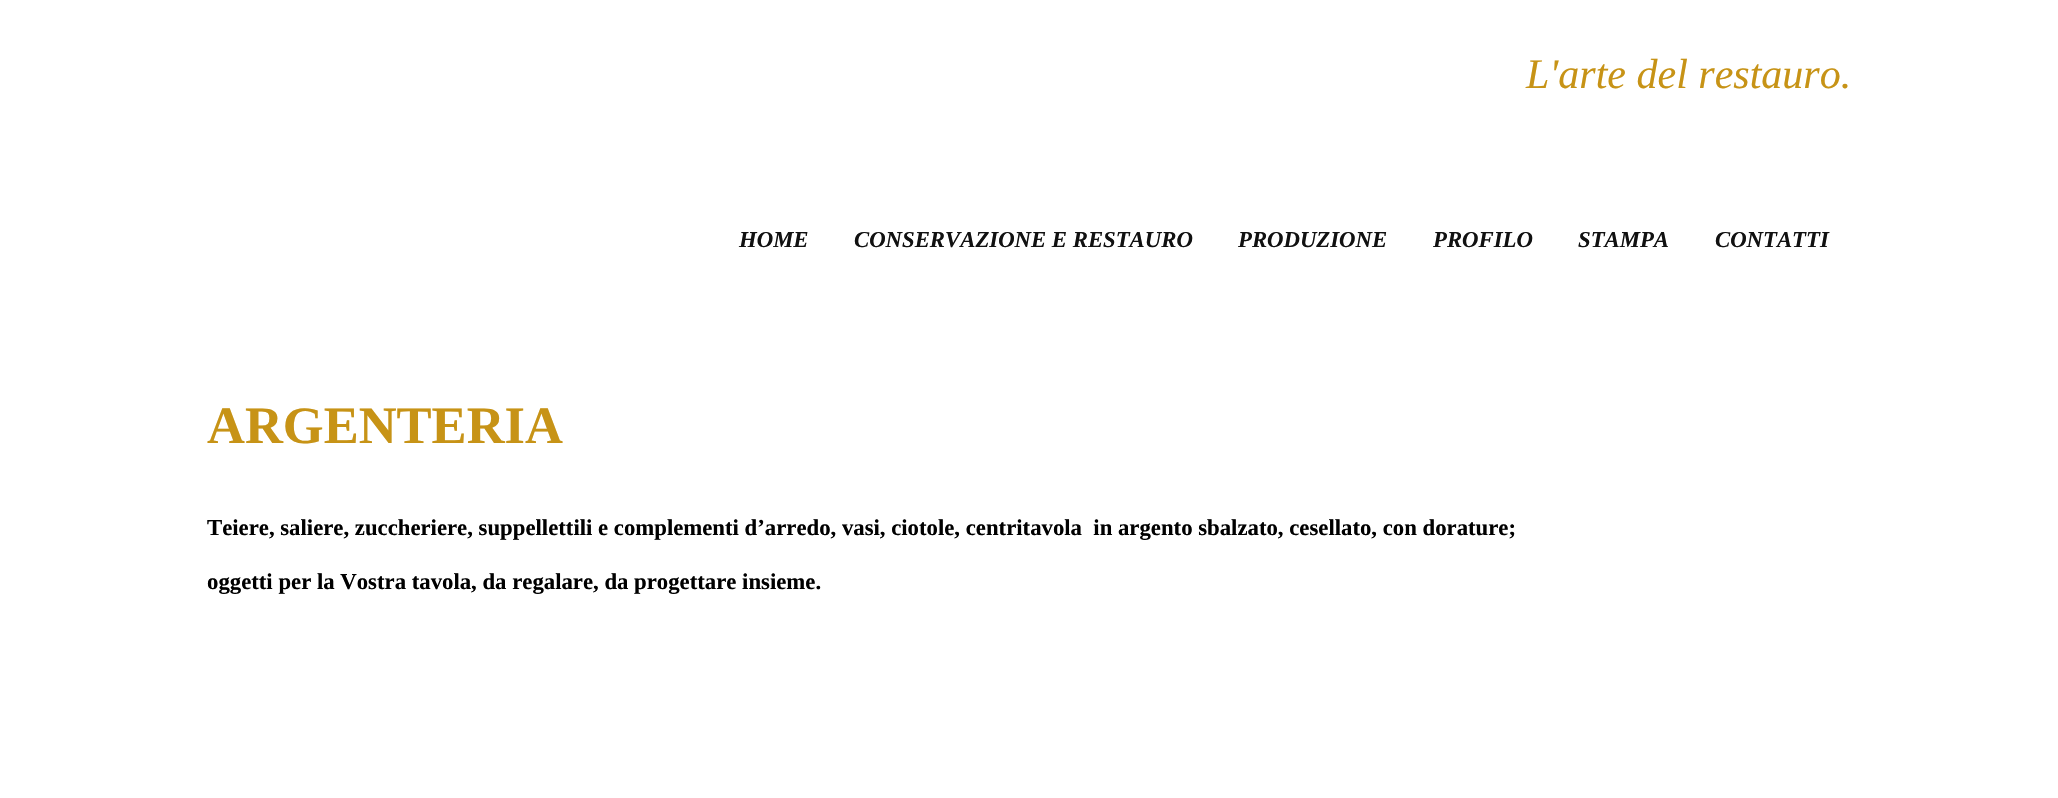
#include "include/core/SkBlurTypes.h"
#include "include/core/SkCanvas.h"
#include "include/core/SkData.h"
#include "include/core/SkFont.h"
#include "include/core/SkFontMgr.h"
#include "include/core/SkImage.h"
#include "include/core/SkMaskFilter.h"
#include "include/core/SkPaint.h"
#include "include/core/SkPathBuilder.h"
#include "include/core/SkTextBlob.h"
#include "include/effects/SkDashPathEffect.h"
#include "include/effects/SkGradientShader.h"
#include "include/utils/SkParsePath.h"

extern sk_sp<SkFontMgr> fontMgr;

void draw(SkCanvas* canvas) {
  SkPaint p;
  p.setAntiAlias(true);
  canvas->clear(SK_ColorWHITE);
  SkFont font1(fontMgr->matchFamilyStyle("Liberation Serif", SkFontStyle::Italic()), 42);
  font1.setSubpixel(true);
  p.setColor(SkColorSetRGB(199, 147, 22));
  canvas->drawString("L'arte del restauro.", 1526, 88, font1, p);
  SkFont font2(fontMgr->matchFamilyStyle("Liberation Serif", SkFontStyle::BoldItalic()), 22.75f);
  font2.setSubpixel(true);
  p.setColor(SkColorSetRGB(17, 17, 17));
  canvas->drawString("HOME", 739, 247, font2, p);
  canvas->drawString("CONSERVAZIONE E RESTAURO", 854, 247, font2, p);
  canvas->drawString("PRODUZIONE", 1238, 247, font2, p);
  canvas->drawString("PROFILO", 1433, 247, font2, p);
  canvas->drawString("STAMPA", 1578, 247, font2, p);
  canvas->drawString("CONTATTI", 1715, 247, font2, p);
  SkFont font3(fontMgr->matchFamilyStyle("Liberation Serif", SkFontStyle::Bold()), 52.5f);
  font3.setSubpixel(true);
  p.setColor(SkColorSetRGB(199, 147, 22));
  canvas->drawString("ARGENTERIA", 207, 443, font3, p);
  canvas->save();
  canvas->clipRect(SkRect::MakeLTRB(207, 394, 1852, 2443));
  SkFont font4(fontMgr->matchFamilyStyle("Liberation Serif", SkFontStyle::Bold()), 22.75f);
  font4.setSubpixel(true);
  p.setColor(SK_ColorBLACK);
  canvas->drawString("Teiere, saliere, zuccheriere, suppellettili e complementi d’arredo, vasi, ciotole, centritavola  in argento sbalzato, cesellato, con dorature;", 207, 535, font4, p);
  canvas->restore();
  canvas->drawString("oggetti per la Vostra tavola, da regalare, da progettare insieme.", 207, 589, font4, p);
}
